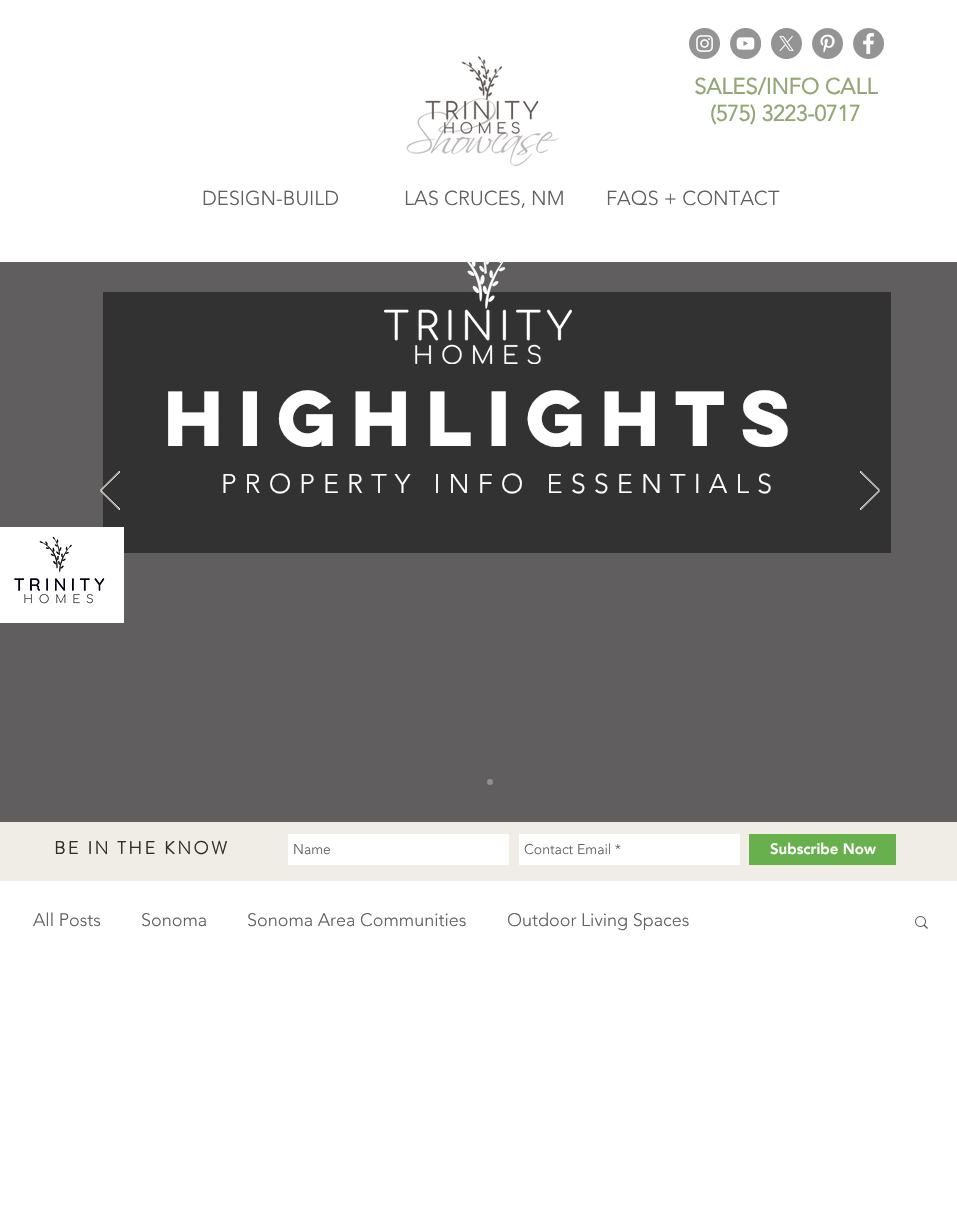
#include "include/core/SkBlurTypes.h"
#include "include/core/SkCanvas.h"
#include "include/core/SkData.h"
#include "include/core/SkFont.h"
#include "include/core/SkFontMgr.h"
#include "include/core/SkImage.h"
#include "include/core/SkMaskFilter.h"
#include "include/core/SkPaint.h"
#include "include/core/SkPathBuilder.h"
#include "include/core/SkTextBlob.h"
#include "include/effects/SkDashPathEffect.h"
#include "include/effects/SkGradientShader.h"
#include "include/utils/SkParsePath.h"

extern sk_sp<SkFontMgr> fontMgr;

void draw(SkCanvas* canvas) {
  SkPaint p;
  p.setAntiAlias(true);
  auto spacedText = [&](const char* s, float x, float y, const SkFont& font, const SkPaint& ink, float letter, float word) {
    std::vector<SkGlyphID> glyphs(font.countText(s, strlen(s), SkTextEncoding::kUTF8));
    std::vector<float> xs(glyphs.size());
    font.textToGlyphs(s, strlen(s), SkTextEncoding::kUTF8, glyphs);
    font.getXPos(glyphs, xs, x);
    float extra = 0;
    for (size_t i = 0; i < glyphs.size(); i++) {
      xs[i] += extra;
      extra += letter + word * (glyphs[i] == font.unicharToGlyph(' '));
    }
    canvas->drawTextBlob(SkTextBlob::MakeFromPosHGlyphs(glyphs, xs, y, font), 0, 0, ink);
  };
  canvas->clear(SK_ColorWHITE);
  canvas->drawImageRect(SkImages::DeferredFromEncodedData(SkData::MakeFromFileName("images/1.png")), SkRect::MakeLTRB(406, 56, 559, 167), SkSamplingOptions());
  canvas->drawImageRect(SkImages::DeferredFromEncodedData(SkData::MakeFromFileName("images/2.png")), SkRect::MakeLTRB(689, 28, 720, 59), SkSamplingOptions());
  canvas->drawImageRect(SkImages::DeferredFromEncodedData(SkData::MakeFromFileName("images/3.png")), SkRect::MakeLTRB(730, 28, 761, 59), SkSamplingOptions());
  canvas->drawImageRect(SkImages::DeferredFromEncodedData(SkData::MakeFromFileName("images/4.png")), SkRect::MakeLTRB(771, 28, 802, 59), SkSamplingOptions());
  canvas->drawImageRect(SkImages::DeferredFromEncodedData(SkData::MakeFromFileName("images/5.png")), SkRect::MakeLTRB(812, 28, 843, 59), SkSamplingOptions());
  canvas->drawImageRect(SkImages::DeferredFromEncodedData(SkData::MakeFromFileName("images/6.png")), SkRect::MakeLTRB(853, 28, 884, 59), SkSamplingOptions());
  p.setColor(SkColorSetRGB(96, 94, 94));
  canvas->drawRect(SkRect::MakeLTRB(0, 262, 957, 822), p);
  p.setColor(SkColorSetRGB(51, 50, 50));
  canvas->drawRect(SkRect::MakeLTRB(103, 292, 891, 553), p);
  canvas->drawImageRect(SkImages::DeferredFromEncodedData(SkData::MakeFromFileName("images/7.png")), SkRect::MakeLTRB(384, 262, 572, 364), SkSamplingOptions());
  canvas->save();
  canvas->clipRect(SkRect::MakeLTRB(100, 471, 120, 510));
  p.setStyle(SkPaint::kStroke_Style);
  p.setStrokeWidth(1);
  p.setColor(SkColorSetRGB(240, 237, 230));
  canvas->drawPath(SkPathBuilder().moveTo(119.5f, 510).lineTo(100, 490.5f).lineTo(119.5f, 471).lineTo(120, 472).lineTo(101, 490.5f).lineTo(120, 509).close().detach(), p);
  canvas->restore();
  canvas->save();
  canvas->clipRect(SkRect::MakeLTRB(860, 471, 880, 510));
  canvas->drawPath(SkPathBuilder().moveTo(860.5f, 510).lineTo(880, 490.5f).lineTo(860.5f, 471).lineTo(860, 472).lineTo(879, 490.5f).lineTo(860, 509).close().detach(), p);
  canvas->restore();
  p.setStyle(SkPaint::kFill_Style);
  p.setColor(SkColorSetRGB(144, 142, 142));
  canvas->drawCircle(490, 782, 3, p);
  p.setColor(SkColorSetRGB(240, 237, 230));
  canvas->drawRect(SkRect::MakeLTRB(0, 822, 957, 881), p);
  p.setColor(SK_ColorWHITE);
  canvas->drawRect(SkRect::MakeLTRB(288, 834, 509, 865), p);
  canvas->drawRect(SkRect::MakeLTRB(519, 834, 740, 865), p);
  p.setColor(SkColorSetRGB(104, 176, 77));
  canvas->drawRect(SkRect::MakeLTRB(749, 834, 896, 865), p);
  canvas->drawImageRect(SkImages::DeferredFromEncodedData(SkData::MakeFromFileName("images/8.png")), SkRect::MakeLTRB(915, 916, 928, 929), SkSamplingOptions());
  canvas->drawImageRect(SkImages::DeferredFromEncodedData(SkData::MakeFromFileName("images/9.png")), SkRect::MakeLTRB(0, 527, 124, 623), SkSamplingOptions());
  SkFont font1(fontMgr->matchFamilyStyle("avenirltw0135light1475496", SkFontStyle::Bold()), 22);
  font1.setSubpixel(true);
  p.setColor(SkColorSetRGB(148, 166, 118));
  canvas->drawString("SALES/INFO CALL", 694, 94, font1, p);
  canvas->drawString("(575) 3223-0717", 710, 121, font1, p);
  SkFont font2(fontMgr->matchFamilyStyle("avenirltw0135light1475496", SkFontStyle(300, SkFontStyle::kNormal_Width, SkFontStyle::kUpright_Slant)), 20);
  font2.setSubpixel(true);
  p.setColor(SkColorSetRGB(96, 94, 94));
  canvas->drawString("DESIGN-BUILD", 202, 205, font2, p);
  canvas->drawString("LAS CRUCES, NM", 404, 205, font2, p);
  canvas->drawString("FAQS + CONTACT", 606, 205, font2, p);
  SkFont font3(fontMgr->matchFamilyStyle("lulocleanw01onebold", SkFontStyle::Bold()), 70);
  font3.setSubpixel(true);
  p.setColor(SK_ColorWHITE);
  canvas->drawString("HIGHLIGHTS", 164, 446, font3, p);
  SkFont font4(fontMgr->matchFamilyStyle("avenirltw0135light1475496", SkFontStyle(300, SkFontStyle::kNormal_Width, SkFontStyle::kUpright_Slant)), 27);
  font4.setSubpixel(true);
  spacedText("PROPERTY INFO ESSENTIALS", 221, 493, font4, p, 8.1f, 0);
  SkFont font5(fontMgr->matchFamilyStyle("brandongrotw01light", SkFontStyle::Bold()), 18);
  font5.setSubpixel(true);
  p.setColor(SkColorSetRGB(47, 46, 46));
  spacedText("BE IN THE KNOW", 54, 854, font5, p, 2.5f, 0);
  SkFont font6(fontMgr->matchFamilyStyle("avenirltw0135light1475496", SkFontStyle(300, SkFontStyle::kNormal_Width, SkFontStyle::kUpright_Slant)), 14);
  font6.setSubpixel(true);
  p.setColor(SkColorSetRGB(96, 94, 94));
  canvas->drawString("Name", 293, 854, font6, p);
  canvas->drawString("Contact Email *", 524, 854, font6, p);
  SkFont font7(fontMgr->matchFamilyStyle("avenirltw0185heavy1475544", SkFontStyle(900, SkFontStyle::kNormal_Width, SkFontStyle::kUpright_Slant)), 15);
  font7.setSubpixel(true);
  p.setColor(SK_ColorWHITE);
  canvas->drawString("Subscribe Now", 770, 854, font7, p);
  SkFont font8(fontMgr->matchFamilyStyle("avenirltw0135light1475496", SkFontStyle(300, SkFontStyle::kNormal_Width, SkFontStyle::kUpright_Slant)), 18);
  font8.setSubpixel(true);
  p.setColor(SkColorSetRGB(96, 94, 94));
  canvas->drawString("All Posts", 33, 926, font8, p);
  canvas->drawString("Sonoma", 141, 926, font8, p);
  canvas->drawString("Sonoma Area Communities", 247, 926, font8, p);
  canvas->drawString("Outdoor Living Spaces", 507, 926, font8, p);
}
